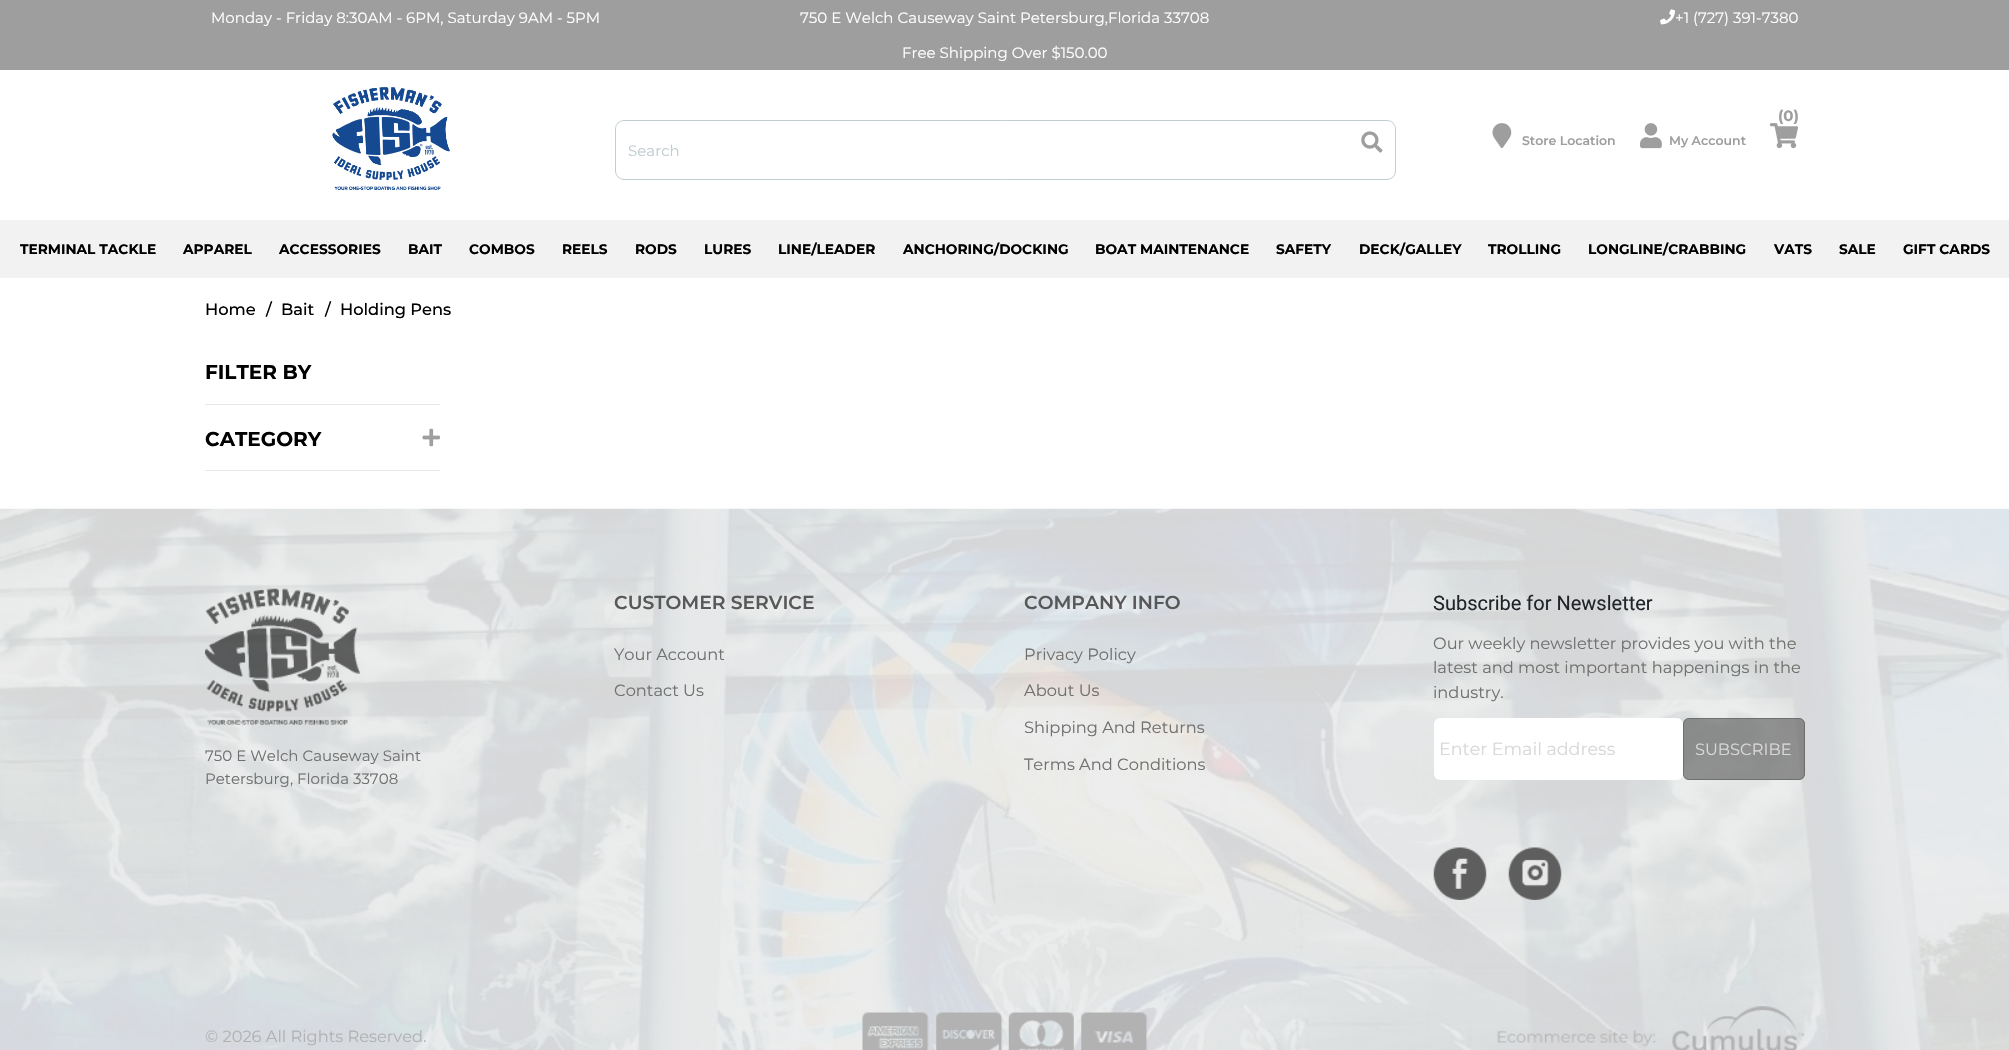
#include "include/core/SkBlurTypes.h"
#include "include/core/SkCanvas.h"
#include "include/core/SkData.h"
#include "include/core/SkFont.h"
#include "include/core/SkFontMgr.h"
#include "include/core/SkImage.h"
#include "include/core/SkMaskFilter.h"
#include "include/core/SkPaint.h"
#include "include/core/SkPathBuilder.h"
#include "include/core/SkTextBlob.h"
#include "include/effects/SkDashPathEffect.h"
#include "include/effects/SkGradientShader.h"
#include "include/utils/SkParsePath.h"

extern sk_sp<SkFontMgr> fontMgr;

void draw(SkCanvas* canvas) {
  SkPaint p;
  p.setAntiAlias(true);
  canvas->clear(SK_ColorWHITE);
  p.setColor(SkColorSetRGB(158, 158, 158));
  canvas->drawRect(SkRect::MakeLTRB(0, 0, 2009, 70), p);
  canvas->drawImageRect(SkImages::DeferredFromEncodedData(SkData::MakeFromFileName("images/1.png")), SkRect::MakeLTRB(1660, 9, 1675, 25), SkSamplingOptions());
  canvas->drawImageRect(SkImages::DeferredFromEncodedData(SkData::MakeFromFileName("images/2.png")), SkRect::MakeLTRB(332, 87, 450, 190), SkSamplingOptions());
  canvas->drawImageRect(SkImages::DeferredFromEncodedData(SkData::MakeFromFileName("images/3.png")), SkRect::MakeLTRB(1770, 123, 1799, 149), SkSamplingOptions());
  canvas->drawImageRect(SkImages::DeferredFromEncodedData(SkData::MakeFromFileName("images/4.png")), SkRect::MakeLTRB(1492, 123, 1512, 149), SkSamplingOptions());
  canvas->drawImageRect(SkImages::DeferredFromEncodedData(SkData::MakeFromFileName("images/5.png")), SkRect::MakeLTRB(1640, 123, 1662, 149), SkSamplingOptions());
  p.setStyle(SkPaint::kStroke_Style);
  p.setStrokeWidth(1);
  p.setColor(SkColorSetRGB(193, 205, 209));
  canvas->drawRoundRect(SkRect::MakeLTRB(615.5f, 120.5f, 1395.5f, 179.5f), 8.5f, 8.5f, p);
  p.setStyle(SkPaint::kFill_Style);
  p.setColor(SK_ColorWHITE);
  canvas->drawRoundRect(SkRect::MakeLTRB(616, 121, 1395, 178), 9, 9, p);
  canvas->drawImageRect(SkImages::DeferredFromEncodedData(SkData::MakeFromFileName("images/6.png")), SkRect::MakeLTRB(1361, 131, 1383, 153), SkSamplingOptions());
  p.setColor(SkColorSetRGB(242, 242, 242));
  canvas->drawRect(SkRect::MakeLTRB(0, 220, 2009, 278), p);
  p.setColor(SkColorSetRGB(231, 231, 231));
  canvas->drawRect(SkRect::MakeLTRB(205, 404, 440, 405), p);
  canvas->drawRect(SkRect::MakeLTRB(205, 470, 440, 471), p);
  canvas->drawImageRect(SkImages::DeferredFromEncodedData(SkData::MakeFromFileName("images/7.png")), SkRect::MakeLTRB(422, 428, 440, 447), SkSamplingOptions());
  canvas->drawImageRect(SkImages::DeferredFromEncodedData(SkData::MakeFromFileName("images/8.png")), SkRect::MakeLTRB(0, 508, 2009, 1050), SkSamplingOptions());
  canvas->drawImageRect(SkImages::DeferredFromEncodedData(SkData::MakeFromFileName("images/9.png")), SkRect::MakeLTRB(205, 588, 360, 725), SkSamplingOptions());
  p.setColor(SK_ColorWHITE);
  canvas->drawRoundRect(SkRect::MakeLTRB(1434, 718, 1683, 780), 6, 6, p);
  p.setColor(SkColorSetARGB(166, 94, 94, 94));
  canvas->drawRoundRect(SkRect::MakeLTRB(1683, 718, 1805, 780), 6, 6, p);
  p.setStyle(SkPaint::kStroke_Style);
  canvas->drawRoundRect(SkRect::MakeLTRB(1683.5f, 718.5f, 1804.5f, 779.5f), 5.5f, 5.5f, p);
  canvas->drawImageRect(SkImages::DeferredFromEncodedData(SkData::MakeFromFileName("images/10.png")), SkRect::MakeLTRB(1433, 847, 1487, 900), SkSamplingOptions());
  canvas->drawImageRect(SkImages::DeferredFromEncodedData(SkData::MakeFromFileName("images/11.png")), SkRect::MakeLTRB(1508, 847, 1562, 900), SkSamplingOptions());
  canvas->drawImageRect(SkImages::DeferredFromEncodedData(SkData::MakeFromFileName("images/12.png")), SkRect::MakeLTRB(862, 1012, 929, 1050), SkSamplingOptions());
  canvas->drawImageRect(SkImages::DeferredFromEncodedData(SkData::MakeFromFileName("images/13.png")), SkRect::MakeLTRB(936, 1012, 1003, 1050), SkSamplingOptions());
  canvas->drawImageRect(SkImages::DeferredFromEncodedData(SkData::MakeFromFileName("images/14.png")), SkRect::MakeLTRB(1008, 1012, 1074, 1050), SkSamplingOptions());
  canvas->drawImageRect(SkImages::DeferredFromEncodedData(SkData::MakeFromFileName("images/15.png")), SkRect::MakeLTRB(1081, 1012, 1148, 1050), SkSamplingOptions());
  canvas->drawImageRect(SkImages::DeferredFromEncodedData(SkData::MakeFromFileName("images/16.png")), SkRect::MakeLTRB(1497, 1006, 1804, 1050), SkSamplingOptions());
  SkFont font1(fontMgr->matchFamilyStyle("Montserrat", SkFontStyle::Normal()), 15);
  font1.setSubpixel(true);
  p.setStyle(SkPaint::kFill_Style);
  p.setColor(SK_ColorWHITE);
  canvas->drawString("Monday - Friday 8:30AM - 6PM, Saturday 9AM - 5PM", 211, 23, font1, p);
  canvas->drawString("750 E Welch Causeway Saint Petersburg,Florida 33708", 800, 23, font1, p);
  canvas->drawString("Free Shipping Over $150.00", 902, 58, font1, p);
  canvas->drawString("+1 (727) 391-7380", 1675, 23, font1, p);
  SkFont font2(fontMgr->matchFamilyStyle("Montserrat", SkFontStyle::Bold()), 15);
  font2.setSubpixel(true);
  p.setColor(SkColorSetRGB(158, 158, 158));
  canvas->drawString("(0)", 1778, 121, font2, p);
  SkFont font3(fontMgr->matchFamilyStyle("Montserrat", SkFontStyle(600, SkFontStyle::kNormal_Width, SkFontStyle::kUpright_Slant)), 12.5f);
  font3.setSubpixel(true);
  canvas->drawString("Store Location", 1522, 145, font3, p);
  canvas->drawString("My Account", 1669, 145, font3, p);
  p.setColor(SkColorSetRGB(193, 205, 209));
  canvas->drawString("Search", 628, 156, font1, p);
  SkFont font4(fontMgr->matchFamilyStyle("Montserrat", SkFontStyle::Bold()), 13.75f);
  font4.setSubpixel(true);
  p.setColor(SK_ColorBLACK);
  canvas->drawString("TERMINAL TACKLE", 20, 254, font4, p);
  canvas->drawString("APPAREL", 183, 254, font4, p);
  canvas->drawString("ACCESSORIES", 279, 254, font4, p);
  canvas->drawString("BAIT", 408, 254, font4, p);
  canvas->drawString("COMBOS", 469, 254, font4, p);
  canvas->drawString("REELS", 562, 254, font4, p);
  canvas->drawString("RODS", 635, 254, font4, p);
  canvas->drawString("LURES", 704, 254, font4, p);
  canvas->drawString("LINE/LEADER", 778, 254, font4, p);
  canvas->drawString("ANCHORING/DOCKING", 903, 254, font4, p);
  canvas->drawString("BOAT MAINTENANCE", 1095, 254, font4, p);
  canvas->drawString("SAFETY", 1276, 254, font4, p);
  canvas->drawString("DECK/GALLEY", 1359, 254, font4, p);
  canvas->drawString("TROLLING", 1488, 254, font4, p);
  canvas->drawString("LONGLINE/CRABBING", 1588, 254, font4, p);
  canvas->drawString("VATS", 1774, 254, font4, p);
  canvas->drawString("SALE", 1839, 254, font4, p);
  canvas->drawString("GIFT CARDS", 1903, 254, font4, p);
  SkFont font5(fontMgr->matchFamilyStyle("Montserrat", SkFontStyle(500, SkFontStyle::kNormal_Width, SkFontStyle::kUpright_Slant)), 16.25f);
  font5.setSubpixel(true);
  canvas->drawString("Home", 205, 315, font5, p);
  canvas->drawString("/", 266, 315, font5, p);
  canvas->drawString("Bait", 281, 315, font5, p);
  canvas->drawString("/", 325, 315, font5, p);
  canvas->drawString("Holding Pens", 340, 315, font5, p);
  SkFont font6(fontMgr->matchFamilyStyle("Montserrat", SkFontStyle::Bold()), 20);
  font6.setSubpixel(true);
  canvas->drawString("FILTER BY", 205, 379, font6, p);
  canvas->drawString("CATEGORY", 205, 446, font6, p);
  p.setColor(SkColorSetRGB(112, 112, 112));
  canvas->drawString("750 E Welch Causeway Saint", 205, 761, font1, p);
  canvas->drawString("Petersburg, Florida 33708", 205, 784, font1, p);
  SkFont font7(fontMgr->matchFamilyStyle("Montserrat", SkFontStyle(600, SkFontStyle::kNormal_Width, SkFontStyle::kUpright_Slant)), 18.75f);
  font7.setSubpixel(true);
  p.setColor(SkColorSetRGB(88, 88, 88));
  canvas->drawString("CUSTOMER SERVICE", 614, 609, font7, p);
  SkFont font8(fontMgr->matchFamilyStyle("Montserrat", SkFontStyle::Normal()), 16.25f);
  font8.setSubpixel(true);
  p.setColor(SkColorSetRGB(112, 112, 112));
  canvas->drawString("Your Account", 614, 660, font8, p);
  canvas->drawString("Contact Us", 614, 696, font8, p);
  p.setColor(SkColorSetRGB(88, 88, 88));
  canvas->drawString("COMPANY INFO", 1024, 609, font7, p);
  p.setColor(SkColorSetRGB(112, 112, 112));
  canvas->drawString("Privacy Policy", 1024, 660, font8, p);
  canvas->drawString("About Us", 1024, 696, font8, p);
  canvas->drawString("Shipping And Returns", 1024, 733, font8, p);
  canvas->drawString("Terms And Conditions", 1024, 770, font8, p);
  SkFont font9(fontMgr->matchFamilyStyle("Roboto", SkFontStyle::Normal()), 20);
  font9.setSubpixel(true);
  p.setColor(SkColorSetRGB(33, 37, 41));
  canvas->drawString("Subscribe for Newsletter", 1433, 610, font9, p);
  p.setColor(SkColorSetRGB(112, 112, 112));
  canvas->drawString("Our weekly newsletter provides you with the", 1433, 649, font8, p);
  canvas->drawString("latest and most important happenings in the", 1433, 673, font8, p);
  canvas->drawString("industry.", 1433, 698, font8, p);
  SkFont font10(fontMgr->matchFamilyStyle("Montserrat", SkFontStyle::Normal()), 17.5f);
  font10.setSubpixel(true);
  p.setColor(SkColorSetRGB(216, 216, 216));
  canvas->drawString("Enter Email address", 1439, 755, font10, p);
  canvas->drawString("SUBSCRIBE", 1695, 755, font8, p);
  p.setColor(SkColorSetRGB(178, 178, 178));
  canvas->drawString("© 2026 All Rights Reserved.", 205, 1042, font8, p);
}
